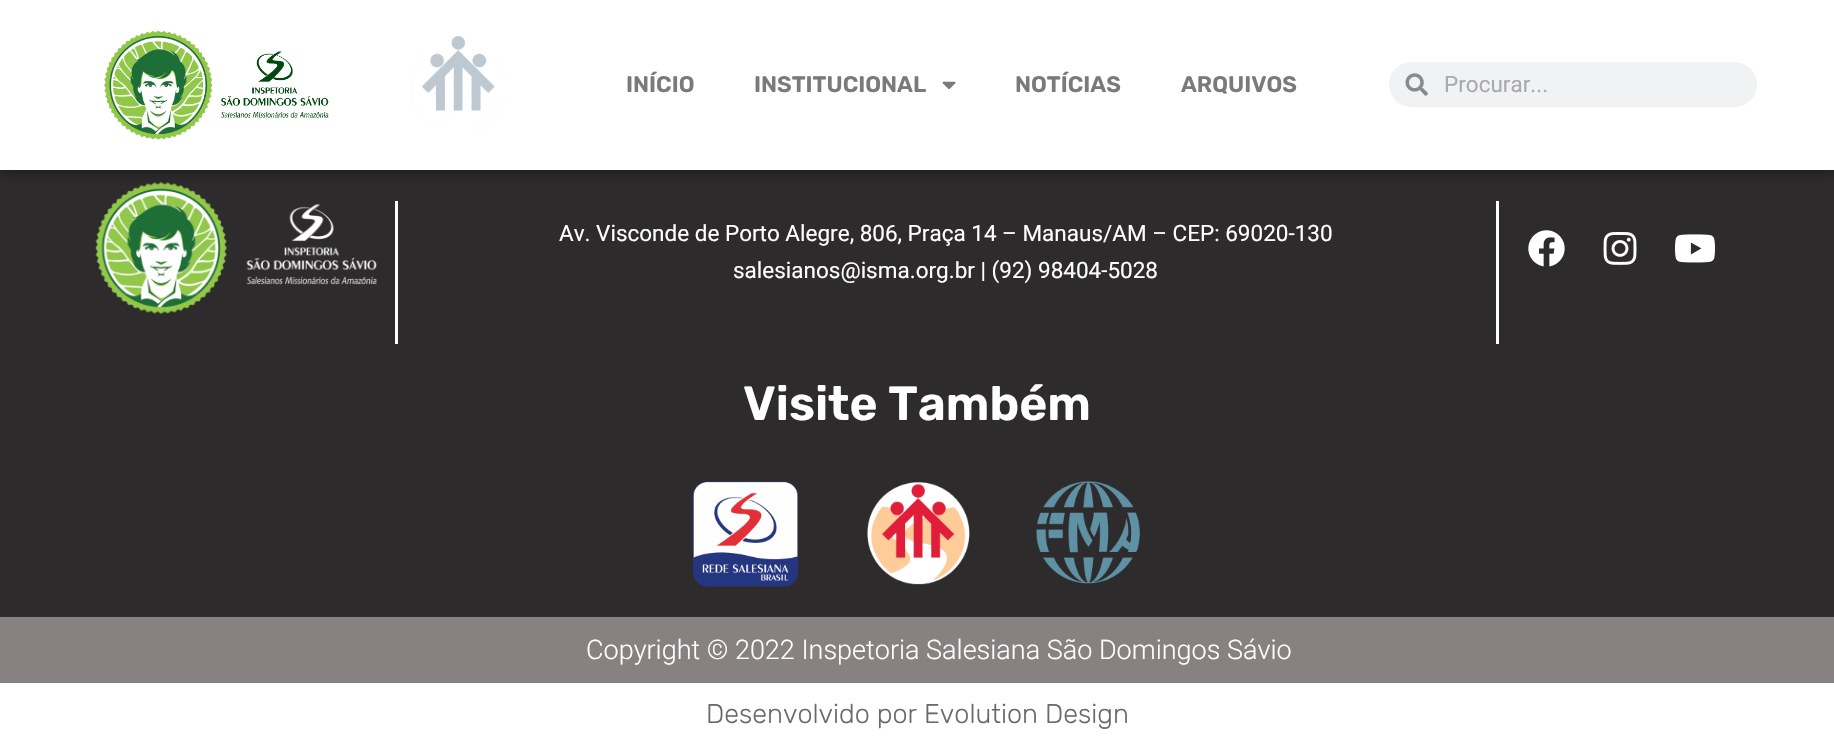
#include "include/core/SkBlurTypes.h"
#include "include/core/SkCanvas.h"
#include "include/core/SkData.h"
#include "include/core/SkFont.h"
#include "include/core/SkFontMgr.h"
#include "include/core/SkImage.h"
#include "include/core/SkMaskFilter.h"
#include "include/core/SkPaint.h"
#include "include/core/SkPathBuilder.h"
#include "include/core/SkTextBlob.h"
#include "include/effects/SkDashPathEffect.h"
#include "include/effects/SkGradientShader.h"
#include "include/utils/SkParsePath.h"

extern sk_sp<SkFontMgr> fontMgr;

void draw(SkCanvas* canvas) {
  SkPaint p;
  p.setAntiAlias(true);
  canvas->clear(SK_ColorWHITE);
  p.setColor(SkColorSetRGB(45, 43, 43));
  canvas->drawRect(SkRect::MakeLTRB(0, 170, 1834, 617), p);
  canvas->drawImageRect(SkImages::DeferredFromEncodedData(SkData::MakeFromFileName("images/5.png")), SkRect::MakeLTRB(95, 181, 377, 314), SkSamplingOptions());
  p.setColor(SkColorSetARGB(128, 0, 0, 0));
  p.setMaskFilter(SkMaskFilter::MakeBlur(kNormal_SkBlurStyle, 7.5f));
  canvas->drawRect(SkRect::MakeLTRB(0, 0, 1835, 170), p);
  p.setMaskFilter(nullptr);
  p.setColor(SK_ColorWHITE);
  canvas->drawRect(SkRect::MakeLTRB(0, 0, 1834, 170), p);
  canvas->drawImageRect(SkImages::DeferredFromEncodedData(SkData::MakeFromFileName("images/1.png")), SkRect::MakeLTRB(104, 30, 329, 140), SkSamplingOptions());
  canvas->drawImageRect(SkImages::DeferredFromEncodedData(SkData::MakeFromFileName("images/2.png")), SkRect::MakeLTRB(411, 36, 505, 134), SkSamplingOptions());
  canvas->drawImageRect(SkImages::DeferredFromEncodedData(SkData::MakeFromFileName("images/3.png")), SkRect::MakeLTRB(942, 81, 956, 90), SkSamplingOptions());
  p.setColor(SkColorSetRGB(241, 242, 243));
  canvas->drawRoundRect(SkRect::MakeLTRB(1389, 62, 1757, 107), 22.5f, 22.5f, p);
  canvas->drawImageRect(SkImages::DeferredFromEncodedData(SkData::MakeFromFileName("images/4.png")), SkRect::MakeLTRB(1405, 73, 1428, 96), SkSamplingOptions());
  p.setColor(SK_ColorWHITE);
  canvas->drawRect(SkRect::MakeLTRB(1496, 201, 1499, 344), p);
  canvas->drawRect(SkRect::MakeLTRB(395, 201, 398, 344), p);
  canvas->drawImageRect(SkImages::DeferredFromEncodedData(SkData::MakeFromFileName("images/6.png")), SkRect::MakeLTRB(1528, 230, 1565, 267), SkSamplingOptions());
  canvas->drawImageRect(SkImages::DeferredFromEncodedData(SkData::MakeFromFileName("images/7.png")), SkRect::MakeLTRB(1603, 231, 1637, 265), SkSamplingOptions());
  canvas->drawImageRect(SkImages::DeferredFromEncodedData(SkData::MakeFromFileName("images/8.png")), SkRect::MakeLTRB(1675, 234, 1715, 263), SkSamplingOptions());
  canvas->drawImageRect(SkImages::DeferredFromEncodedData(SkData::MakeFromFileName("images/9.png")), SkRect::MakeLTRB(693, 481, 798, 587), SkSamplingOptions());
  canvas->drawImageRect(SkImages::DeferredFromEncodedData(SkData::MakeFromFileName("images/10.png")), SkRect::MakeLTRB(867, 482, 970, 585), SkSamplingOptions());
  canvas->drawImageRect(SkImages::DeferredFromEncodedData(SkData::MakeFromFileName("images/11.png")), SkRect::MakeLTRB(1036, 481, 1140, 584), SkSamplingOptions());
  p.setColor(SkColorSetRGB(135, 129, 129));
  canvas->drawRect(SkRect::MakeLTRB(0, 617, 1834, 683), p);
  SkFont font1(fontMgr->matchFamilyStyle("Rubik", SkFontStyle(600, SkFontStyle::kNormal_Width, SkFontStyle::kUpright_Slant)), 22.5f);
  font1.setSubpixel(true);
  p.setColor(SkColorSetRGB(122, 122, 122));
  canvas->drawString("INÍCIO", 626, 92, font1, p);
  canvas->drawString("INSTITUCIONAL", 754, 92, font1, p);
  canvas->drawString("NOTÍCIAS", 1015, 92, font1, p);
  canvas->drawString("ARQUIVOS", 1181, 92, font1, p);
  SkFont font2(fontMgr->matchFamilyStyle("Roboto", SkFontStyle::Normal()), 22.5f);
  font2.setSubpixel(true);
  p.setColor(SkColorSetRGB(170, 170, 170));
  canvas->drawString("Procurar...", 1444, 92, font2, p);
  p.setColor(SK_ColorWHITE);
  canvas->drawString("Av. Visconde de Porto Alegre, 806, Praça 14 – Manaus/AM – CEP: 69020-130", 559, 241, font2, p);
  canvas->drawString("salesianos@isma.org.br | (92) 98404-5028", 733, 278, font2, p);
  SkFont font3(fontMgr->matchFamilyStyle("Rubik", SkFontStyle(600, SkFontStyle::kNormal_Width, SkFontStyle::kUpright_Slant)), 48);
  font3.setSubpixel(true);
  canvas->drawString("Visite Também", 743, 420, font3, p);
  SkFont font4(fontMgr->matchFamilyStyle("Roboto", SkFontStyle(300, SkFontStyle::kNormal_Width, SkFontStyle::kUpright_Slant)), 27);
  font4.setSubpixel(true);
  canvas->drawString("Copyright © 2022 Inspetoria Salesiana São Domingos Sávio", 586, 659, font4, p);
  SkFont font5(fontMgr->matchFamilyStyle("Rubik", SkFontStyle(300, SkFontStyle::kNormal_Width, SkFontStyle::kUpright_Slant)), 27);
  font5.setSubpixel(true);
  p.setColor(SkColorSetRGB(106, 106, 106));
  canvas->drawString("Desenvolvido por Evolution Design", 706, 723, font5, p);
}
